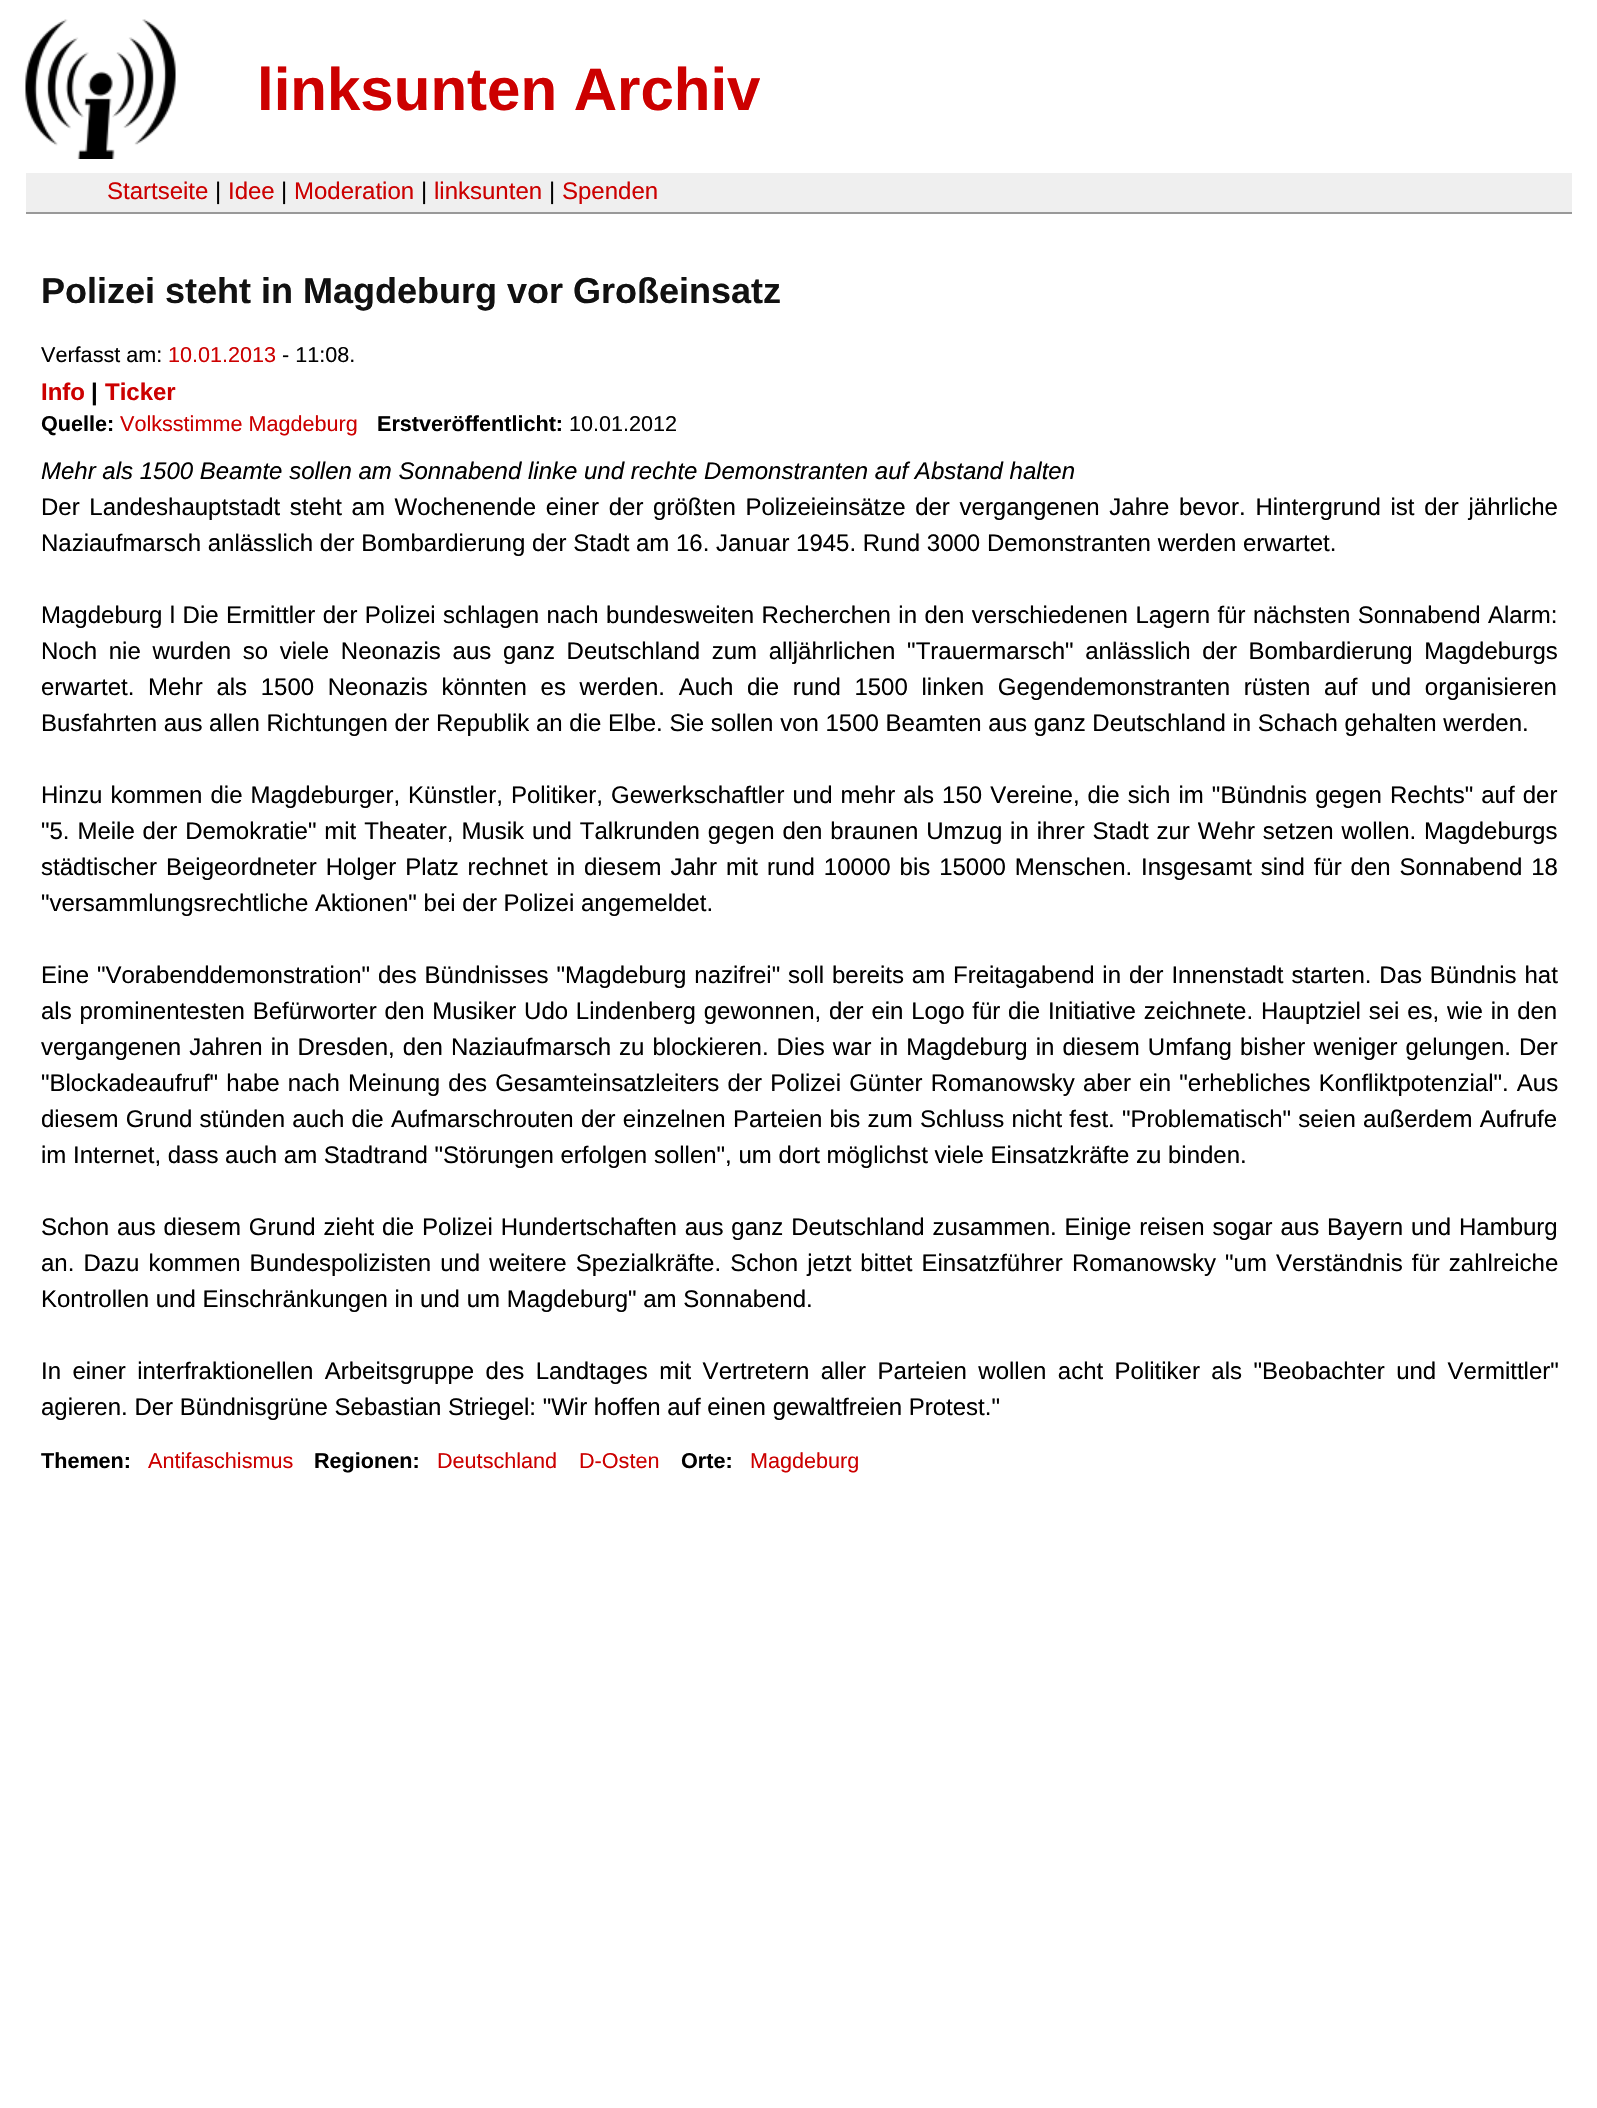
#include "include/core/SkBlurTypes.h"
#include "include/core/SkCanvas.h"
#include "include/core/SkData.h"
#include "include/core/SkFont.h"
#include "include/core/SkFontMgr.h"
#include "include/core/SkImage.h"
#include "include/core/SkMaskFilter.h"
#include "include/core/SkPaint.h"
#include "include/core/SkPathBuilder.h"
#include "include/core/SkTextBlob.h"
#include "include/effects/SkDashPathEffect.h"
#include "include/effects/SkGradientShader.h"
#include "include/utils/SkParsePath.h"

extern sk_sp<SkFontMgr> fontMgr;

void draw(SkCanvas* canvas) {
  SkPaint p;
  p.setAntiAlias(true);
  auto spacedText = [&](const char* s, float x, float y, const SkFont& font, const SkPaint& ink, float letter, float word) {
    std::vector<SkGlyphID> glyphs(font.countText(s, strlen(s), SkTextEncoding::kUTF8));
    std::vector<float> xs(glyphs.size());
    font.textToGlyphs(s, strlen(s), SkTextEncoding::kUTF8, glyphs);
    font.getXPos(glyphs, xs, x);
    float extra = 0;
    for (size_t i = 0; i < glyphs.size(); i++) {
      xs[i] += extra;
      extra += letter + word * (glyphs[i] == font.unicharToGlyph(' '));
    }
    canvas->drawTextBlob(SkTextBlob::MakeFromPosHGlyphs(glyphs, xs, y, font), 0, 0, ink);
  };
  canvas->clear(SK_ColorWHITE);
  canvas->drawImageRect(SkImages::DeferredFromEncodedData(SkData::MakeFromFileName("images/1.png")), SkRect::MakeLTRB(25, 19, 176, 159), SkSamplingOptions());
  p.setColor(SkColorSetRGB(239, 239, 239));
  canvas->drawRect(SkRect::MakeLTRB(26, 173, 1572, 212), p);
  p.setColor(SkColorSetRGB(153, 153, 153));
  canvas->drawRect(SkRect::MakeLTRB(26, 212, 1572, 214), p);
  SkFont font1(fontMgr->matchFamilyStyle("Liberation Sans", SkFontStyle::Bold()), 60);
  font1.setSubpixel(true);
  p.setColor(SkColorSetRGB(204, 0, 0));
  canvas->drawString("linksunten Archiv", 257, 110, font1, p);
  SkFont font2(fontMgr->matchFamilyStyle("Liberation Sans", SkFontStyle::Normal()), 24);
  font2.setSubpixel(true);
  canvas->drawString("Startseite", 107, 199, font2, p);
  p.setColor(SK_ColorBLACK);
  canvas->drawString("|", 215, 199, font2, p);
  p.setColor(SkColorSetRGB(204, 0, 0));
  canvas->drawString("Idee", 228, 199, font2, p);
  p.setColor(SK_ColorBLACK);
  canvas->drawString("|", 281, 199, font2, p);
  p.setColor(SkColorSetRGB(204, 0, 0));
  canvas->drawString("Moderation", 294, 199, font2, p);
  p.setColor(SK_ColorBLACK);
  canvas->drawString("|", 421, 199, font2, p);
  p.setColor(SkColorSetRGB(204, 0, 0));
  canvas->drawString("linksunten", 434, 199, font2, p);
  p.setColor(SK_ColorBLACK);
  canvas->drawString("|", 549, 199, font2, p);
  p.setColor(SkColorSetRGB(204, 0, 0));
  canvas->drawString("Spenden", 562, 199, font2, p);
  SkFont font3(fontMgr->matchFamilyStyle("Liberation Sans", SkFontStyle::Bold()), 36);
  font3.setSubpixel(true);
  p.setColor(SkColorSetRGB(17, 17, 17));
  canvas->drawString("Polizei steht in Magdeburg vor Großeinsatz", 41, 303, font3, p);
  SkFont font4(fontMgr->matchFamilyStyle("Liberation Sans", SkFontStyle::Normal()), 21.6f);
  font4.setSubpixel(true);
  p.setColor(SK_ColorBLACK);
  canvas->drawString("Verfasst am:", 41, 362, font4, p);
  p.setColor(SkColorSetRGB(204, 0, 0));
  canvas->drawString("10.01.2013", 168, 362, font4, p);
  p.setColor(SK_ColorBLACK);
  canvas->drawString("- 11:08.", 282, 362, font4, p);
  SkFont font5(fontMgr->matchFamilyStyle("Liberation Sans", SkFontStyle::Bold()), 24);
  font5.setSubpixel(true);
  p.setColor(SkColorSetRGB(204, 0, 0));
  canvas->drawString("Info", 41, 400, font5, p);
  p.setColor(SK_ColorBLACK);
  canvas->drawString("|", 91, 400, font5, p);
  p.setColor(SkColorSetRGB(204, 0, 0));
  canvas->drawString("Ticker", 105, 400, font5, p);
  SkFont font6(fontMgr->matchFamilyStyle("Liberation Sans", SkFontStyle::Bold()), 21.6f);
  font6.setSubpixel(true);
  p.setColor(SK_ColorBLACK);
  canvas->drawString("Quelle:", 41, 431, font6, p);
  p.setColor(SkColorSetRGB(204, 0, 0));
  canvas->drawString("Volksstimme Magdeburg", 120, 431, font4, p);
  p.setColor(SK_ColorBLACK);
  canvas->drawString("Erstveröffentlicht:", 377, 431, font6, p);
  canvas->drawString("10.01.2012", 569, 431, font4, p);
  SkFont font7(fontMgr->matchFamilyStyle("Liberation Sans", SkFontStyle::Italic()), 24);
  font7.setSubpixel(true);
  canvas->drawString("Mehr als 1500 Beamte sollen am Sonnabend linke und rechte Demonstranten auf Abstand halten", 41, 479, font7, p);
  spacedText("Der Landeshauptstadt steht am Wochenende einer der größten Polizeieinsätze der vergangenen Jahre bevor. Hintergrund ist der jährliche", 41, 515, font2, p, 0, 3);
  canvas->drawString("Naziaufmarsch anlässlich der Bombardierung der Stadt am 16. Januar 1945. Rund 3000 Demonstranten werden erwartet.", 41, 551, font2, p);
  spacedText("Magdeburg l Die Ermittler der Polizei schlagen nach bundesweiten Recherchen in den verschiedenen Lagern für nächsten Sonnabend Alarm:", 41, 623, font2, p, 0, 0.75f);
  spacedText("Noch nie wurden so viele Neonazis aus ganz Deutschland zum alljährlichen \"Trauermarsch\" anlässlich der Bombardierung Magdeburgs", 41, 659, font2, p, 0, 5);
  spacedText("erwartet. Mehr als 1500 Neonazis könnten es werden. Auch die rund 1500 linken Gegendemonstranten rüsten auf und organisieren", 41, 695, font2, p, 0, 7);
  canvas->drawString("Busfahrten aus allen Richtungen der Republik an die Elbe. Sie sollen von 1500 Beamten aus ganz Deutschland in Schach gehalten werden.", 41, 731, font2, p);
  spacedText("Hinzu kommen die Magdeburger, Künstler, Politiker, Gewerkschaftler und mehr als 150 Vereine, die sich im \"Bündnis gegen Rechts\" auf der", 41, 803, font2, p, 0, 1.4f);
  spacedText("\"5. Meile der Demokratie\" mit Theater, Musik und Talkrunden gegen den braunen Umzug in ihrer Stadt zur Wehr setzen wollen. Magdeburgs", 41, 839, font2, p, 0, 1.2f);
  spacedText("städtischer Beigeordneter Holger Platz rechnet in diesem Jahr mit rund 10000 bis 15000 Menschen. Insgesamt sind für den Sonnabend 18", 41, 875, font2, p, 0, 2.25f);
  canvas->drawString("\"versammlungsrechtliche Aktionen\" bei der Polizei angemeldet.", 41, 911, font2, p);
  spacedText("Eine \"Vorabenddemonstration\" des Bündnisses \"Magdeburg nazifrei\" soll bereits am Freitagabend in der Innenstadt starten. Das Bündnis hat", 41, 983, font2, p, 0, 1.2f);
  spacedText("als prominentesten Befürworter den Musiker Udo Lindenberg gewonnen, der ein Logo für die Initiative zeichnete. Hauptziel sei es, wie in den", 41, 1019, font2, p, 0, 1.1f);
  spacedText("vergangenen Jahren in Dresden, den Naziaufmarsch zu blockieren. Dies war in Magdeburg in diesem Umfang bisher weniger gelungen. Der", 41, 1055, font2, p, 0, 1.4f);
  spacedText("\"Blockadeaufruf\" habe nach Meinung des Gesamteinsatzleiters der Polizei Günter Romanowsky aber ein \"erhebliches Konfliktpotenzial\". Aus", 41, 1091, font2, p, 0, 1.5f);
  spacedText("diesem Grund stünden auch die Aufmarschrouten der einzelnen Parteien bis zum Schluss nicht fest. \"Problematisch\" seien außerdem Aufrufe", 41, 1127, font2, p, 0, 0.6f);
  canvas->drawString("im Internet, dass auch am Stadtrand \"Störungen erfolgen sollen\", um dort möglichst viele Einsatzkräfte zu binden.", 41, 1163, font2, p);
  spacedText("Schon aus diesem Grund zieht die Polizei Hundertschaften aus ganz Deutschland zusammen. Einige reisen sogar aus Bayern und Hamburg", 41, 1235, font2, p, 0, 1.25f);
  spacedText("an. Dazu kommen Bundespolizisten und weitere Spezialkräfte. Schon jetzt bittet Einsatzführer Romanowsky \"um Verständnis für zahlreiche", 41, 1271, font2, p, 0, 2.4f);
  canvas->drawString("Kontrollen und Einschränkungen in und um Magdeburg\" am Sonnabend.", 41, 1307, font2, p);
  spacedText("In einer interfraktionellen Arbeitsgruppe des Landtages mit Vertretern aller Parteien wollen acht Politiker als \"Beobachter und Vermittler\"", 41, 1379, font2, p, 0, 4.75f);
  canvas->drawString("agieren. Der Bündnisgrüne Sebastian Striegel: \"Wir hoffen auf einen gewaltfreien Protest.\"", 41, 1415, font2, p);
  canvas->drawString("Themen:", 41, 1468, font6, p);
  p.setColor(SkColorSetRGB(204, 0, 0));
  canvas->drawString("Antifaschismus", 148, 1468, font4, p);
  p.setColor(SK_ColorBLACK);
  canvas->drawString("Regionen:", 314, 1468, font6, p);
  p.setColor(SkColorSetRGB(204, 0, 0));
  canvas->drawString("Deutschland", 437, 1468, font4, p);
  canvas->drawString("D-Osten", 579, 1468, font4, p);
  p.setColor(SK_ColorBLACK);
  canvas->drawString("Orte:", 681, 1468, font6, p);
  p.setColor(SkColorSetRGB(204, 0, 0));
  canvas->drawString("Magdeburg", 750, 1468, font4, p);
}
